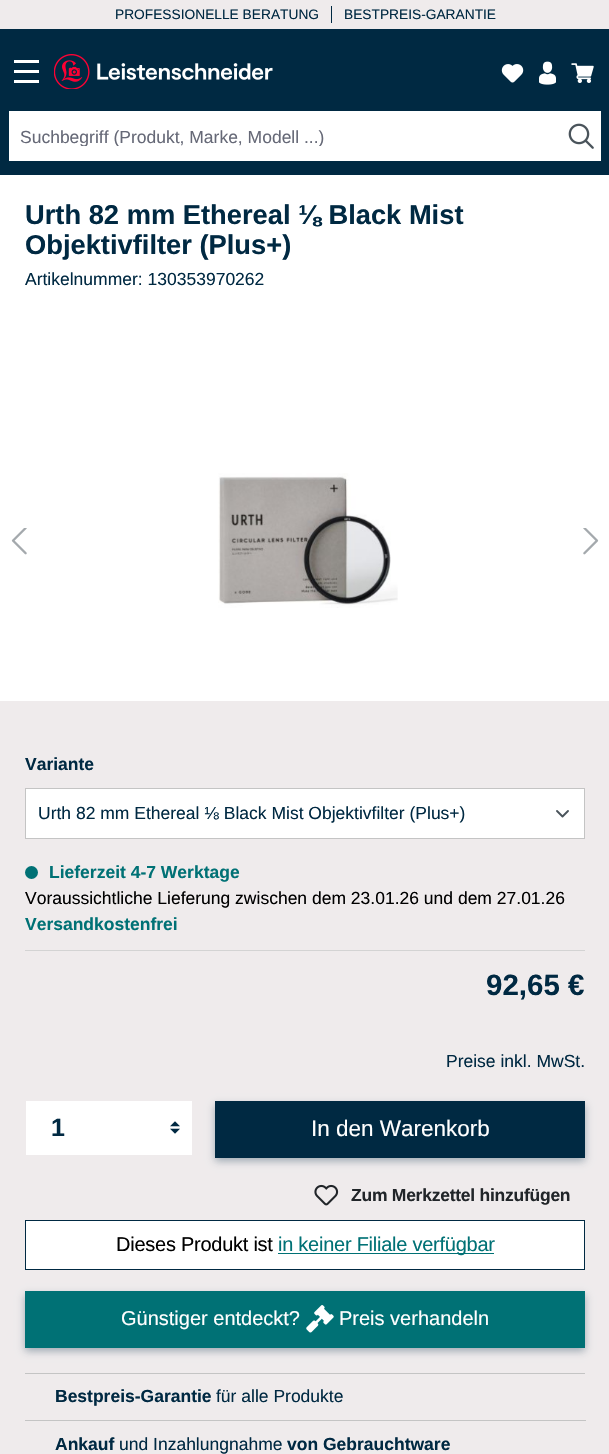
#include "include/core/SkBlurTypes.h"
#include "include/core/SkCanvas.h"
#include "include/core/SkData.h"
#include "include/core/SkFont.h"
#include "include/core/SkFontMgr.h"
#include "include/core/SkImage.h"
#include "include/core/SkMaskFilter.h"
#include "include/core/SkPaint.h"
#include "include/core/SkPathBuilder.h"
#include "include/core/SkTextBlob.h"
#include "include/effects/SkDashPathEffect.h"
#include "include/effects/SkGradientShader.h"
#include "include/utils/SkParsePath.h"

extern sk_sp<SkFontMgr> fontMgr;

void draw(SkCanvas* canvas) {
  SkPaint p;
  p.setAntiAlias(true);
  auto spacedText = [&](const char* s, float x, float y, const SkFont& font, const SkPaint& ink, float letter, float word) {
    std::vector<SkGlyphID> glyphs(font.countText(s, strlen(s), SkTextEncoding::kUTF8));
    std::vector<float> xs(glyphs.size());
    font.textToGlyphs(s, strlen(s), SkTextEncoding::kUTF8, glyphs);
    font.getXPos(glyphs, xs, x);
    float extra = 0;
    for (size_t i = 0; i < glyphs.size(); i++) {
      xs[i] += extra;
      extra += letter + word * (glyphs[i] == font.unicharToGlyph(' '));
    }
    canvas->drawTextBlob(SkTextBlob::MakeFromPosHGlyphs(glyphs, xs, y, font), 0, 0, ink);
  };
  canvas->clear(SK_ColorWHITE);
  p.setColor(SkColorSetRGB(239, 235, 236));
  canvas->drawRect(SkRect::MakeLTRB(0, 0, 609, 29), p);
  p.setColor(SkColorSetRGB(0, 41, 66));
  canvas->drawRect(SkRect::MakeLTRB(331, 6, 332, 23), p);
  canvas->drawRect(SkRect::MakeLTRB(0, 29, 609, 175), p);
  p.setColor(SK_ColorWHITE);
  canvas->drawRect(SkRect::MakeLTRB(14, 60, 39, 63), p);
  canvas->drawRect(SkRect::MakeLTRB(14, 70, 39, 73), p);
  canvas->drawRect(SkRect::MakeLTRB(14, 80, 39, 83), p);
  canvas->drawImageRect(SkImages::DeferredFromEncodedData(SkData::MakeFromFileName("images/1.png")), SkRect::MakeLTRB(54, 54, 273, 89), SkSamplingOptions());
  canvas->drawImageRect(SkImages::DeferredFromEncodedData(SkData::MakeFromFileName("images/2.png")), SkRect::MakeLTRB(501, 64, 524, 83), SkSamplingOptions());
  canvas->drawImageRect(SkImages::DeferredFromEncodedData(SkData::MakeFromFileName("images/3.png")), SkRect::MakeLTRB(539, 61, 556, 85), SkSamplingOptions());
  canvas->drawImageRect(SkImages::DeferredFromEncodedData(SkData::MakeFromFileName("images/4.png")), SkRect::MakeLTRB(571, 63, 594, 83), SkSamplingOptions());
  canvas->drawRect(SkRect::MakeLTRB(9, 111, 601, 161), p);
  canvas->drawImageRect(SkImages::DeferredFromEncodedData(SkData::MakeFromFileName("images/5.png")), SkRect::MakeLTRB(568, 123, 594, 149), SkSamplingOptions());
  canvas->drawImageRect(SkImages::DeferredFromEncodedData(SkData::MakeFromFileName("images/6.png")), SkRect::MakeLTRB(218, 473, 398, 608), SkSamplingOptions());
  canvas->drawImageRect(SkImages::DeferredFromEncodedData(SkData::MakeFromFileName("images/7.png")), SkRect::MakeLTRB(11, 528, 27, 555), SkSamplingOptions());
  canvas->drawImageRect(SkImages::DeferredFromEncodedData(SkData::MakeFromFileName("images/8.png")), SkRect::MakeLTRB(583, 528, 599, 555), SkSamplingOptions());
  p.setColor(SkColorSetRGB(239, 235, 236));
  canvas->drawRect(SkRect::MakeLTRB(0, 701, 609, 1454), p);
  p.setColor(SK_ColorWHITE);
  canvas->drawRect(SkRect::MakeLTRB(26, 789, 584, 838), p);
  p.setStyle(SkPaint::kStroke_Style);
  p.setStrokeWidth(1.9f);
  p.setStrokeCap(SkPaint::kRound_Cap);
  p.setStrokeJoin(SkPaint::kRound_Join);
  p.setColor(SkColorSetRGB(74, 84, 91));
  canvas->drawPath(SkPathBuilder().moveTo(557, 811).lineTo(562.5f, 816.5f).lineTo(568, 811).detach(), p);
  p.setStrokeWidth(1);
  p.setStrokeCap(SkPaint::kButt_Cap);
  p.setStrokeJoin(SkPaint::kMiter_Join);
  p.setColor(SkColorSetRGB(196, 196, 196));
  canvas->drawRect(SkRect::MakeLTRB(25.5f, 788.5f, 584.5f, 838.5f), p);
  p.setStyle(SkPaint::kFill_Style);
  p.setColor(SkColorSetRGB(211, 211, 211));
  canvas->drawRect(SkRect::MakeLTRB(25, 950, 585, 951), p);
  p.setColor(SkColorSetRGB(0, 113, 117));
  canvas->drawCircle(31.5f, 872.5f, 6.5f, p);
  p.setColor(SK_ColorWHITE);
  canvas->drawRect(SkRect::MakeLTRB(26, 1101, 192, 1155), p);
  canvas->drawImageRect(SkImages::DeferredFromEncodedData(SkData::MakeFromFileName("images/9.png")), SkRect::MakeLTRB(170, 1121, 180, 1134), SkSamplingOptions());
  p.setColor(SkColorSetARGB(89, 0, 41, 66));
  p.setMaskFilter(SkMaskFilter::MakeBlur(kNormal_SkBlurStyle, 4));
  canvas->drawRect(SkRect::MakeLTRB(215, 1105, 585, 1161), p);
  p.setMaskFilter(nullptr);
  p.setColor(SkColorSetRGB(0, 41, 66));
  canvas->drawRect(SkRect::MakeLTRB(215, 1101, 585, 1158), p);
  canvas->drawImageRect(SkImages::DeferredFromEncodedData(SkData::MakeFromFileName("images/10.png")), SkRect::MakeLTRB(314, 1184, 339, 1206), SkSamplingOptions());
  p.setColor(SK_ColorWHITE);
  canvas->drawRect(SkRect::MakeLTRB(25.5f, 1220.5f, 584.5f, 1269.5f), p);
  p.setStyle(SkPaint::kStroke_Style);
  p.setColor(SkColorSetRGB(0, 41, 66));
  canvas->drawRect(SkRect::MakeLTRB(25.5f, 1220.5f, 584.5f, 1269.5f), p);
  p.setStyle(SkPaint::kFill_Style);
  p.setColor(SkColorSetRGB(0, 113, 117));
  canvas->drawRect(SkRect::MakeLTRB(278, 1253, 494, 1254), p);
  p.setColor(SkColorSetARGB(89, 0, 41, 66));
  p.setMaskFilter(SkMaskFilter::MakeBlur(kNormal_SkBlurStyle, 4));
  canvas->drawRect(SkRect::MakeLTRB(25, 1295, 585, 1351), p);
  p.setMaskFilter(nullptr);
  p.setColor(SkColorSetRGB(0, 113, 117));
  canvas->drawRect(SkRect::MakeLTRB(25, 1291, 585, 1348), p);
  canvas->drawImageRect(SkImages::DeferredFromEncodedData(SkData::MakeFromFileName("images/11.png")), SkRect::MakeLTRB(306, 1305, 334, 1333), SkSamplingOptions());
  p.setColor(SkColorSetRGB(196, 196, 196));
  canvas->drawRect(SkRect::MakeLTRB(25, 1373, 585, 1374), p);
  canvas->drawRect(SkRect::MakeLTRB(25, 1420, 586, 1421), p);
  SkFont font1(fontMgr->matchFamilyStyle("Liberation Sans", SkFontStyle::Normal()), 13.75f);
  font1.setSubpixel(true);
  p.setColor(SkColorSetRGB(0, 41, 66));
  canvas->drawString("PROFESSIONELLE BERATUNG", 115, 19, font1, p);
  canvas->drawString("BESTPREIS-GARANTIE", 344, 19, font1, p);
  canvas->save();
  canvas->clipRect(SkRect::MakeLTRB(20, 126, 551, 146));
  SkFont font2(fontMgr->matchFamilyStyle("Liberation Sans", SkFontStyle::Normal()), 17.5f);
  font2.setSubpixel(true);
  p.setColor(SkColorSetRGB(102, 105, 119));
  canvas->drawString("Suchbegriff (Produkt, Marke, Modell ...)", 20, 143, font2, p);
  canvas->restore();
  SkFont font3(fontMgr->matchFamilyStyle("Liberation Sans", SkFontStyle::Bold()), 27.3f);
  font3.setSubpixel(true);
  p.setColor(SkColorSetRGB(0, 41, 66));
  canvas->drawString("Urth 82 mm Ethereal ⅛ Black Mist", 25, 224, font3, p);
  canvas->drawString("Objektivfilter (Plus+)", 25, 254, font3, p);
  canvas->drawString("Artikelnummer: 130353970262", 25, 285, font2, p);
  SkFont font4(fontMgr->matchFamilyStyle("Liberation Sans", SkFontStyle::Bold()), 17.5f);
  font4.setSubpixel(true);
  canvas->drawString("Variante", 25, 770, font4, p);
  canvas->drawString("Urth 82 mm Ethereal ⅛ Black Mist Objektivfilter (Plus+)", 38, 819, font2, p);
  p.setColor(SkColorSetRGB(0, 113, 117));
  canvas->drawString("Lieferzeit 4-7 Werktage", 49, 878, font4, p);
  p.setColor(SK_ColorBLACK);
  canvas->drawString("Voraussichtliche Lieferung zwischen dem 23.01.26 und dem 27.01.26", 25, 904, font2, p);
  p.setColor(SkColorSetRGB(0, 113, 117));
  canvas->drawString("Versandkostenfrei", 25, 930, font4, p);
  SkFont font5(fontMgr->matchFamilyStyle("Liberation Sans", SkFontStyle::Bold()), 29.5f);
  font5.setSubpixel(true);
  p.setColor(SkColorSetRGB(0, 41, 66));
  canvas->drawString("92,65 €", 486, 995, font5, p);
  canvas->drawString("Preise inkl. MwSt.", 446, 1067, font2, p);
  SkFont font6(fontMgr->matchFamilyStyle("Liberation Sans", SkFontStyle::Bold()), 25);
  font6.setSubpixel(true);
  canvas->drawString("1", 51, 1136, font6, p);
  SkFont font7(fontMgr->matchFamilyStyle("Liberation Sans", SkFontStyle::Normal()), 22.5f);
  font7.setSubpixel(true);
  p.setColor(SK_ColorWHITE);
  canvas->drawString("In den Warenkorb", 311, 1136, font7, p);
  p.setColor(SkColorSetRGB(33, 37, 41));
  spacedText("Zum Merkzettel hinzufügen", 351, 1201, font4, p, -0.25f, 0);
  SkFont font8(fontMgr->matchFamilyStyle("Liberation Sans", SkFontStyle::Normal()), 20);
  font8.setSubpixel(true);
  p.setColor(SK_ColorBLACK);
  spacedText("Dieses Produkt ist", 116, 1251, font8, p, -0.25f, 0);
  p.setColor(SkColorSetRGB(0, 113, 117));
  spacedText("in keiner Filiale verfügbar", 278, 1251, font8, p, -0.25f, 0);
  p.setColor(SK_ColorWHITE);
  canvas->drawString("Günstiger entdeckt?", 121, 1325, font8, p);
  canvas->drawString("Preis verhandeln", 339, 1325, font8, p);
  p.setColor(SkColorSetRGB(0, 41, 66));
  canvas->drawString("Bestpreis-Garantie", 55, 1402, font4, p);
  canvas->drawString("für alle Produkte", 216, 1402, font2, p);
  canvas->drawString("Ankauf", 55, 1450, font4, p);
  canvas->drawString("und Inzahlungnahme", 119, 1450, font2, p);
  canvas->drawString("von Gebrauchtware", 287, 1450, font4, p);
}
